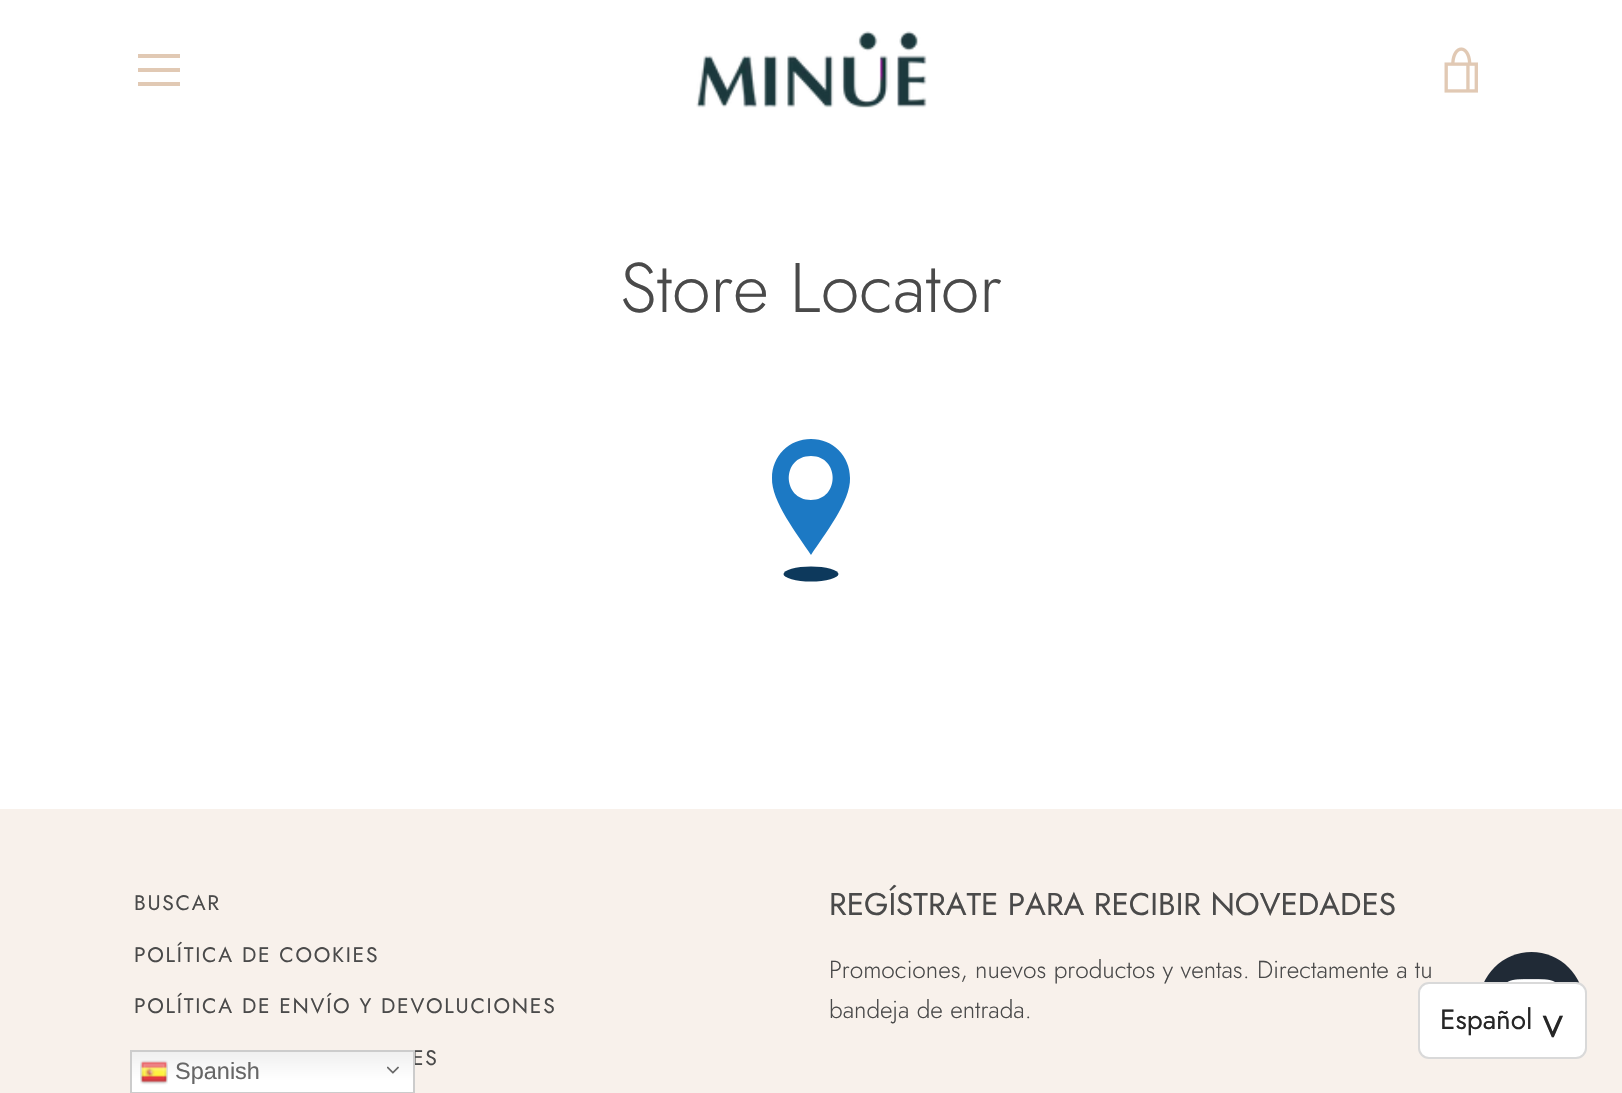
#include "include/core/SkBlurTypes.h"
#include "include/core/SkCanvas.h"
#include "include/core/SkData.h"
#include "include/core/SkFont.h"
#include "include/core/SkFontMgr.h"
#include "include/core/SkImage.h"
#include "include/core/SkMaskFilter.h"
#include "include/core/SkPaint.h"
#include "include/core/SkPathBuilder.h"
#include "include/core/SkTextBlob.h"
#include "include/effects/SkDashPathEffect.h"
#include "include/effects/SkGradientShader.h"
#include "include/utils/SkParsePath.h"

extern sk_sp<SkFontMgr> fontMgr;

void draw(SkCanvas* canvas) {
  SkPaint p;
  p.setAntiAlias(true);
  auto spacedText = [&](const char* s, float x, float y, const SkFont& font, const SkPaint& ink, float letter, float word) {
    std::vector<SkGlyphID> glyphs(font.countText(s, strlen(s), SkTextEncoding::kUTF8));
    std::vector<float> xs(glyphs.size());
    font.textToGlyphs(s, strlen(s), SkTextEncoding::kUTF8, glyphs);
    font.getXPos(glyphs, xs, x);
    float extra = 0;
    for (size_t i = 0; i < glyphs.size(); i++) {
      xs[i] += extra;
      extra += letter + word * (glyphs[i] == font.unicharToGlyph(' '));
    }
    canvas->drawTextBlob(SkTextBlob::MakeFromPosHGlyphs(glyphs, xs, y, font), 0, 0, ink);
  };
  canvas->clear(SK_ColorWHITE);
  p.setColor(SkColorSetRGB(225, 201, 180));
  canvas->drawRect(SkRect::MakeLTRB(138, 54, 180, 58), p);
  canvas->drawRect(SkRect::MakeLTRB(138, 68, 180, 72), p);
  canvas->drawRect(SkRect::MakeLTRB(138, 82, 180, 86), p);
  canvas->drawImageRect(SkImages::DeferredFromEncodedData(SkData::MakeFromFileName("images/1.png")), SkRect::MakeLTRB(696, 31, 927, 108), SkSamplingOptions());
  canvas->drawImageRect(SkImages::DeferredFromEncodedData(SkData::MakeFromFileName("images/2.png")), SkRect::MakeLTRB(1444, 47, 1478, 93), SkSamplingOptions());
  p.setColor(SkColorSetRGB(28, 121, 196));
  canvas->drawPath(SkPathBuilder().moveTo(811, 555).cubicTo(798, 535, 771, 501, 772, 478).cubicTo(772, 456, 789, 439, 811, 439).cubicTo(833, 439, 850, 456, 850, 478).cubicTo(851, 501, 824, 535, 811, 555).close().moveTo(811, 456).cubicTo(781, 456, 782, 500, 811, 500).cubicTo(840, 500, 840, 456, 811, 456).close().detach(), p);
  p.setColor(SkColorSetRGB(13, 57, 92));
  canvas->drawOval(SkRect::MakeLTRB(783.5f, 566.5f, 838.5f, 581.5f), p);
  p.setColor(SkColorSetRGB(248, 241, 235));
  canvas->drawRect(SkRect::MakeLTRB(0, 809, 1622, 1093), p);
  p.setColor(SkColorSetRGB(32, 42, 54));
  canvas->drawCircle(1531.5f, 1004.5f, 52.5f, p);
  canvas->drawImageRect(SkImages::DeferredFromEncodedData(SkData::MakeFromFileName("images/3.png")), SkRect::MakeLTRB(1507, 979, 1555, 982), SkSamplingOptions());
  {
    const SkColor colors[] = {SkColorSetRGB(239, 239, 239), SK_ColorWHITE};
    const float stops[] = {0, 0.7f};
    const SkPoint ends[] = {{272, 1050}, {272, 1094}};
    p.setShader(SkGradientShader::MakeLinear(ends, colors, stops, 2, SkTileMode::kClamp));
    p.setAlpha(255);
  }
  canvas->drawRect(SkRect::MakeLTRB(132, 1052, 413, 1092), p);
  SkFont font1(fontMgr->matchFamilyStyle("Jost", SkFontStyle(300, SkFontStyle::kNormal_Width, SkFontStyle::kUpright_Slant)), 70);
  font1.setSubpixel(true);
  p.setShader(nullptr);
  p.setColor(SkColorSetRGB(74, 74, 74));
  canvas->drawString("Store Locator", 620, 312, font1, p);
  SkFont font2(fontMgr->matchFamilyStyle("Jost", SkFontStyle::Normal()), 21);
  font2.setSubpixel(true);
  spacedText("BUSCAR", 134, 910, font2, p, 1.75f, 0);
  spacedText("POLÍTICA DE COOKIES", 134, 962, font2, p, 1.75f, 0);
  spacedText("POLÍTICA DE ENVÍO Y DEVOLUCIONES", 134, 1013, font2, p, 1.75f, 0);
  spacedText("ES", 412, 1065, font2, p, 1.75f, 0);
  SkFont font3(fontMgr->matchFamilyStyle("Jost", SkFontStyle::Normal()), 31.5f);
  font3.setSubpixel(true);
  canvas->drawString("REGÍSTRATE PARA RECIBIR NOVEDADES", 829, 915, font3, p);
  SkFont font4(fontMgr->matchFamilyStyle("Jost", SkFontStyle(300, SkFontStyle::kNormal_Width, SkFontStyle::kUpright_Slant)), 24.5f);
  font4.setSubpixel(true);
  canvas->drawString("Promociones, nuevos productos y ventas. Directamente a tu", 829, 978, font4, p);
  canvas->drawString("bandeja de entrada.", 829, 1018, font4, p);
  p.setColor(SK_ColorWHITE);
  canvas->drawRoundRect(SkRect::MakeLTRB(1419, 983, 1586, 1058), 10, 10, p);
  p.setStyle(SkPaint::kStroke_Style);
  p.setStrokeWidth(2);
  p.setColor(SkColorSetRGB(217, 217, 217));
  canvas->drawRoundRect(SkRect::MakeLTRB(1419, 983, 1586, 1058), 10, 10, p);
  SkFont font5(fontMgr->matchFamilyStyle("Jost", SkFontStyle::Normal()), 28);
  font5.setSubpixel(true);
  p.setStyle(SkPaint::kFill_Style);
  p.setColor(SkColorSetRGB(38, 38, 38));
  canvas->drawString("Español", 1440, 1029, font5, p);
  SkFont font6(fontMgr->matchFamilyStyle("Jost", SkFontStyle::Normal()), 42);
  font6.setSubpixel(true);
  canvas->save();
  canvas->rotate(90, 1542, 1013);
  spacedText(">", 1542, 1013, font6, p, -13, 0);
  canvas->restore();
  p.setStyle(SkPaint::kStroke_Style);
  p.setColor(SkColorSetRGB(204, 204, 204));
  canvas->drawRect(SkRect::MakeLTRB(131, 1051, 414, 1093), p);
  canvas->drawImageRect(SkImages::DeferredFromEncodedData(SkData::MakeFromFileName("images/4.png")), SkRect::MakeLTRB(140, 1060, 168, 1085), SkSamplingOptions());
  SkFont font7(fontMgr->matchFamilyStyle("Liberation Sans", SkFontStyle::Normal()), 23.5f);
  font7.setSubpixel(true);
  p.setStyle(SkPaint::kFill_Style);
  p.setColor(SkColorSetRGB(102, 102, 102));
  canvas->drawString("Spanish", 175, 1079, font7, p);
  canvas->drawImageRect(SkImages::DeferredFromEncodedData(SkData::MakeFromFileName("images/5.png")), SkRect::MakeLTRB(387, 1066, 399, 1074), SkSamplingOptions());
}
